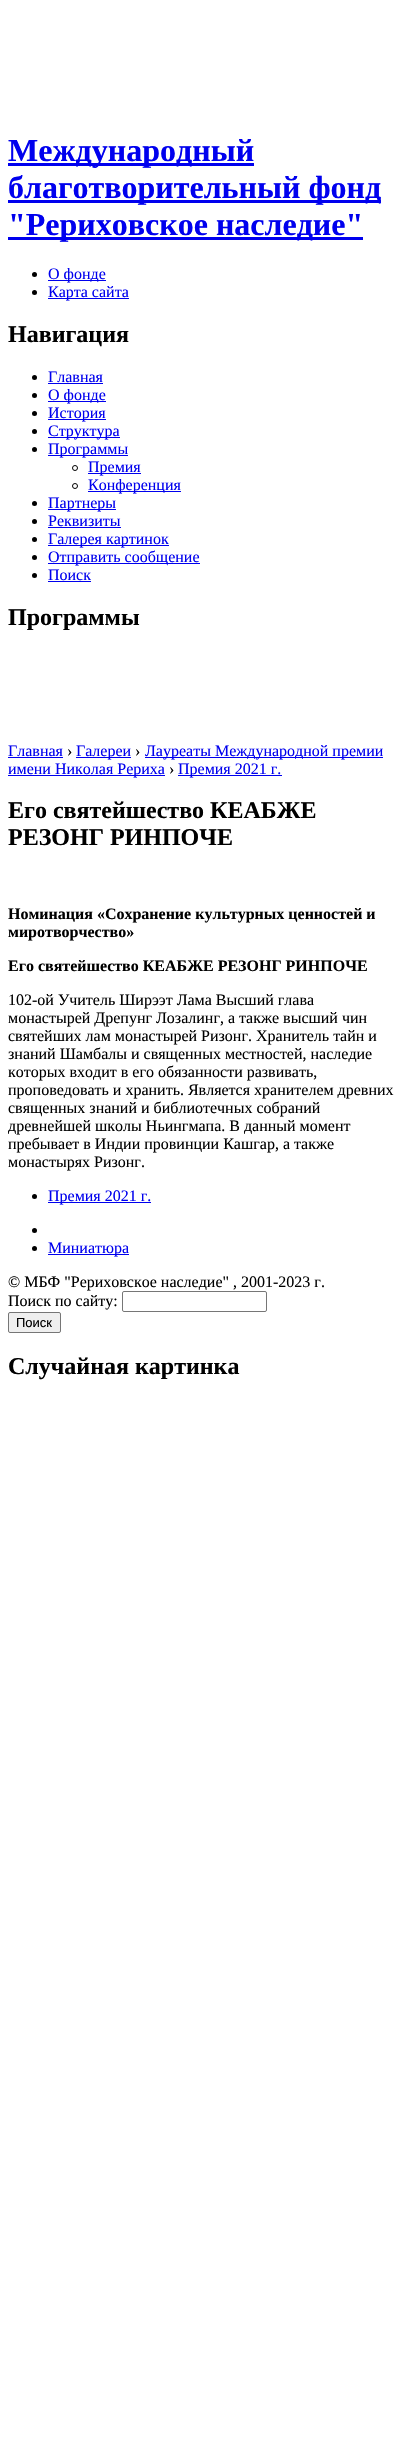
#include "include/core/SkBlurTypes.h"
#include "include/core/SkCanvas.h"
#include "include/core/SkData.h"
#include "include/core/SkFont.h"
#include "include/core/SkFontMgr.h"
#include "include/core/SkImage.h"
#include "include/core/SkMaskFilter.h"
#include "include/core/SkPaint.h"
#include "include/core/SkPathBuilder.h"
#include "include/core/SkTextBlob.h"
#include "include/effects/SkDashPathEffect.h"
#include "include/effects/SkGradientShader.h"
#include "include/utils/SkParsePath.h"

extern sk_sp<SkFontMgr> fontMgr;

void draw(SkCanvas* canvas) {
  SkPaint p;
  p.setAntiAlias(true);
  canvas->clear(SK_ColorWHITE);
  p.setColor(SkColorSetRGB(0, 0, 238));
  canvas->drawRect(SkRect::MakeLTRB(8, 163, 254, 166), p);
  canvas->drawRect(SkRect::MakeLTRB(8, 200, 381, 203), p);
  canvas->drawRect(SkRect::MakeLTRB(8, 237, 363, 240), p);
  p.setColor(SK_ColorBLACK);
  canvas->drawCircle(34.5f, 274.5f, 2.5f, p);
  p.setColor(SkColorSetRGB(0, 0, 238));
  canvas->drawRect(SkRect::MakeLTRB(48, 280, 106, 281), p);
  p.setColor(SK_ColorBLACK);
  canvas->drawCircle(34.5f, 292.5f, 2.5f, p);
  p.setColor(SkColorSetRGB(0, 0, 238));
  canvas->drawRect(SkRect::MakeLTRB(48, 298, 129, 299), p);
  p.setColor(SK_ColorBLACK);
  canvas->drawCircle(34.5f, 377.5f, 2.5f, p);
  p.setColor(SkColorSetRGB(0, 0, 238));
  canvas->drawRect(SkRect::MakeLTRB(48, 383, 103, 384), p);
  p.setColor(SK_ColorBLACK);
  canvas->drawCircle(34.5f, 395.5f, 2.5f, p);
  p.setColor(SkColorSetRGB(0, 0, 238));
  canvas->drawRect(SkRect::MakeLTRB(48, 401, 106, 402), p);
  p.setColor(SK_ColorBLACK);
  canvas->drawCircle(34.5f, 413.5f, 2.5f, p);
  p.setColor(SkColorSetRGB(0, 0, 238));
  canvas->drawRect(SkRect::MakeLTRB(48, 419, 106, 420), p);
  p.setColor(SK_ColorBLACK);
  canvas->drawCircle(34.5f, 431.5f, 2.5f, p);
  p.setColor(SkColorSetRGB(0, 0, 238));
  canvas->drawRect(SkRect::MakeLTRB(48, 437, 120, 438), p);
  p.setColor(SK_ColorBLACK);
  canvas->drawCircle(34.5f, 449.5f, 2.5f, p);
  p.setColor(SkColorSetRGB(0, 0, 238));
  canvas->drawRect(SkRect::MakeLTRB(48, 455, 128, 456), p);
  p.setStyle(SkPaint::kStroke_Style);
  p.setStrokeWidth(1);
  p.setColor(SK_ColorBLACK);
  canvas->drawCircle(75, 468, 2.5f, p);
  p.setStyle(SkPaint::kFill_Style);
  p.setColor(SkColorSetRGB(0, 0, 238));
  canvas->drawRect(SkRect::MakeLTRB(88, 473, 141, 474), p);
  p.setStyle(SkPaint::kStroke_Style);
  p.setColor(SK_ColorBLACK);
  canvas->drawCircle(75, 486, 2.5f, p);
  p.setStyle(SkPaint::kFill_Style);
  p.setColor(SkColorSetRGB(0, 0, 238));
  canvas->drawRect(SkRect::MakeLTRB(88, 491, 181, 492), p);
  p.setColor(SK_ColorBLACK);
  canvas->drawCircle(34.5f, 503.5f, 2.5f, p);
  p.setColor(SkColorSetRGB(0, 0, 238));
  canvas->drawRect(SkRect::MakeLTRB(48, 509, 116, 510), p);
  p.setColor(SK_ColorBLACK);
  canvas->drawCircle(34.5f, 521.5f, 2.5f, p);
  p.setColor(SkColorSetRGB(0, 0, 238));
  canvas->drawRect(SkRect::MakeLTRB(48, 527, 121, 528), p);
  p.setColor(SK_ColorBLACK);
  canvas->drawCircle(34.5f, 539.5f, 2.5f, p);
  p.setColor(SkColorSetRGB(0, 0, 238));
  canvas->drawRect(SkRect::MakeLTRB(48, 545, 169, 546), p);
  p.setColor(SK_ColorBLACK);
  canvas->drawCircle(34.5f, 557.5f, 2.5f, p);
  p.setColor(SkColorSetRGB(0, 0, 238));
  canvas->drawRect(SkRect::MakeLTRB(48, 563, 200, 564), p);
  p.setColor(SK_ColorBLACK);
  canvas->drawCircle(34.5f, 575.5f, 2.5f, p);
  p.setColor(SkColorSetRGB(0, 0, 238));
  canvas->drawRect(SkRect::MakeLTRB(48, 581, 91, 582), p);
  canvas->drawRect(SkRect::MakeLTRB(8, 757, 63, 758), p);
  canvas->drawRect(SkRect::MakeLTRB(76, 757, 131, 758), p);
  canvas->drawRect(SkRect::MakeLTRB(145, 757, 383, 758), p);
  canvas->drawRect(SkRect::MakeLTRB(8, 775, 165, 776), p);
  canvas->drawRect(SkRect::MakeLTRB(178, 775, 282, 776), p);
  p.setColor(SK_ColorBLACK);
  canvas->drawCircle(34.5f, 1196.5f, 2.5f, p);
  p.setColor(SkColorSetRGB(0, 0, 238));
  canvas->drawRect(SkRect::MakeLTRB(48, 1202, 151, 1203), p);
  p.setColor(SK_ColorBLACK);
  canvas->drawCircle(34.5f, 1230.5f, 2.5f, p);
  canvas->drawCircle(34.5f, 1248.5f, 2.5f, p);
  p.setColor(SkColorSetRGB(0, 0, 238));
  canvas->drawRect(SkRect::MakeLTRB(48, 1254, 129, 1255), p);
  p.setStyle(SkPaint::kStroke_Style);
  p.setColor(SkColorSetRGB(118, 118, 118));
  canvas->drawRoundRect(SkRect::MakeLTRB(122.5f, 1291.5f, 266.5f, 1311.5f), 1.5f, 1.5f, p);
  p.setStyle(SkPaint::kFill_Style);
  p.setColor(SkColorSetRGB(239, 239, 239));
  canvas->drawRoundRect(SkRect::MakeLTRB(8.5f, 1312.5f, 60.5f, 1332.5f), 1.5f, 1.5f, p);
  p.setStyle(SkPaint::kStroke_Style);
  p.setColor(SkColorSetRGB(118, 118, 118));
  canvas->drawRoundRect(SkRect::MakeLTRB(8.5f, 1312.5f, 60.5f, 1332.5f), 1.5f, 1.5f, p);
  SkFont font1(fontMgr->matchFamilyStyle("Liberation Serif", SkFontStyle::Bold()), 32);
  font1.setSubpixel(true);
  p.setStyle(SkPaint::kFill_Style);
  p.setColor(SkColorSetRGB(0, 0, 238));
  canvas->drawString("Международный", 8, 161, font1, p);
  canvas->drawString("благотворительный фонд", 8, 198, font1, p);
  canvas->drawString("\"Рериховское наследие\"", 8, 235, font1, p);
  SkFont font2(fontMgr->matchFamilyStyle("Liberation Serif", SkFontStyle::Normal()), 16);
  font2.setSubpixel(true);
  canvas->drawString("О фонде", 48, 279, font2, p);
  canvas->drawString("Карта сайта", 48, 297, font2, p);
  SkFont font3(fontMgr->matchFamilyStyle("Liberation Serif", SkFontStyle::Bold()), 24);
  font3.setSubpixel(true);
  p.setColor(SK_ColorBLACK);
  canvas->drawString("Навигация", 8, 342, font3, p);
  p.setColor(SkColorSetRGB(0, 0, 238));
  canvas->drawString("Главная", 48, 382, font2, p);
  canvas->drawString("О фонде", 48, 400, font2, p);
  canvas->drawString("История", 48, 418, font2, p);
  canvas->drawString("Структура", 48, 436, font2, p);
  canvas->drawString("Программы", 48, 454, font2, p);
  canvas->drawString("Премия", 88, 472, font2, p);
  canvas->drawString("Конференция", 88, 490, font2, p);
  canvas->drawString("Партнеры", 48, 508, font2, p);
  canvas->drawString("Реквизиты", 48, 526, font2, p);
  canvas->drawString("Галерея картинок", 48, 544, font2, p);
  canvas->drawString("Отправить сообщение", 48, 562, font2, p);
  canvas->drawString("Поиск", 48, 580, font2, p);
  p.setColor(SK_ColorBLACK);
  canvas->drawString("Программы", 8, 625, font3, p);
  p.setColor(SkColorSetRGB(0, 0, 238));
  canvas->drawString("Главная", 8, 756, font2, p);
  p.setColor(SK_ColorBLACK);
  canvas->drawString("›", 67, 756, font2, p);
  p.setColor(SkColorSetRGB(0, 0, 238));
  canvas->drawString("Галереи", 76, 756, font2, p);
  p.setColor(SK_ColorBLACK);
  canvas->drawString("›", 135, 756, font2, p);
  p.setColor(SkColorSetRGB(0, 0, 238));
  canvas->drawString("Лауреаты Международной премии", 145, 756, font2, p);
  canvas->drawString("имени Николая Рериха", 8, 774, font2, p);
  p.setColor(SK_ColorBLACK);
  canvas->drawString("›", 169, 774, font2, p);
  p.setColor(SkColorSetRGB(0, 0, 238));
  canvas->drawString("Премия 2021 г.", 178, 774, font2, p);
  p.setColor(SK_ColorBLACK);
  canvas->drawString("Его святейшество КЕАБЖЕ", 8, 818, font3, p);
  canvas->drawString("РЕЗОНГ РИНПОЧЕ", 8, 845, font3, p);
  SkFont font4(fontMgr->matchFamilyStyle("Liberation Serif", SkFontStyle::Bold()), 16);
  font4.setSubpixel(true);
  canvas->drawString("Номинация «Сохранение культурных ценностей и", 8, 919, font4, p);
  canvas->drawString("миротворчество»", 8, 937, font4, p);
  canvas->drawString("Его святейшество КЕАБЖЕ РЕЗОНГ РИНПОЧЕ", 8, 971, font4, p);
  canvas->drawString("102-ой Учитель Ширээт Лама Высший глава", 8, 1005, font2, p);
  canvas->drawString("монастырей Дрепунг Лозалинг, а также высший чин", 8, 1023, font2, p);
  canvas->drawString("святейших лам монастырей Ризонг. Хранитель тайн и", 8, 1041, font2, p);
  canvas->drawString("знаний Шамбалы и священных местностей, наследие", 8, 1059, font2, p);
  canvas->drawString("которых входит в его обязанности развивать,", 8, 1077, font2, p);
  canvas->drawString("проповедовать и хранить. Является хранителем древних", 8, 1095, font2, p);
  canvas->drawString("священных знаний и библиотечных собраний", 8, 1113, font2, p);
  canvas->drawString("древнейшей школы Ньингмапа. В данный момент", 8, 1131, font2, p);
  canvas->drawString("пребывает в Индии провинции Кашгар, а также", 8, 1149, font2, p);
  canvas->drawString("монастырях Ризонг.", 8, 1167, font2, p);
  p.setColor(SkColorSetRGB(0, 0, 238));
  canvas->drawString("Премия 2021 г.", 48, 1201, font2, p);
  canvas->drawString("Миниатюра", 48, 1253, font2, p);
  p.setColor(SK_ColorBLACK);
  canvas->drawString("© МБФ \"Рериховское наследие\" , 2001-2023 г.", 8, 1287, font2, p);
  canvas->drawString("Поиск по сайту:", 8, 1306, font2, p);
  SkFont font5(fontMgr->matchFamilyStyle("Liberation Sans", SkFontStyle::Normal()), 13);
  font5.setSubpixel(true);
  canvas->drawString("Поиск", 16, 1327, font5, p);
  canvas->drawString("Случайная картинка", 8, 1374, font3, p);
}
